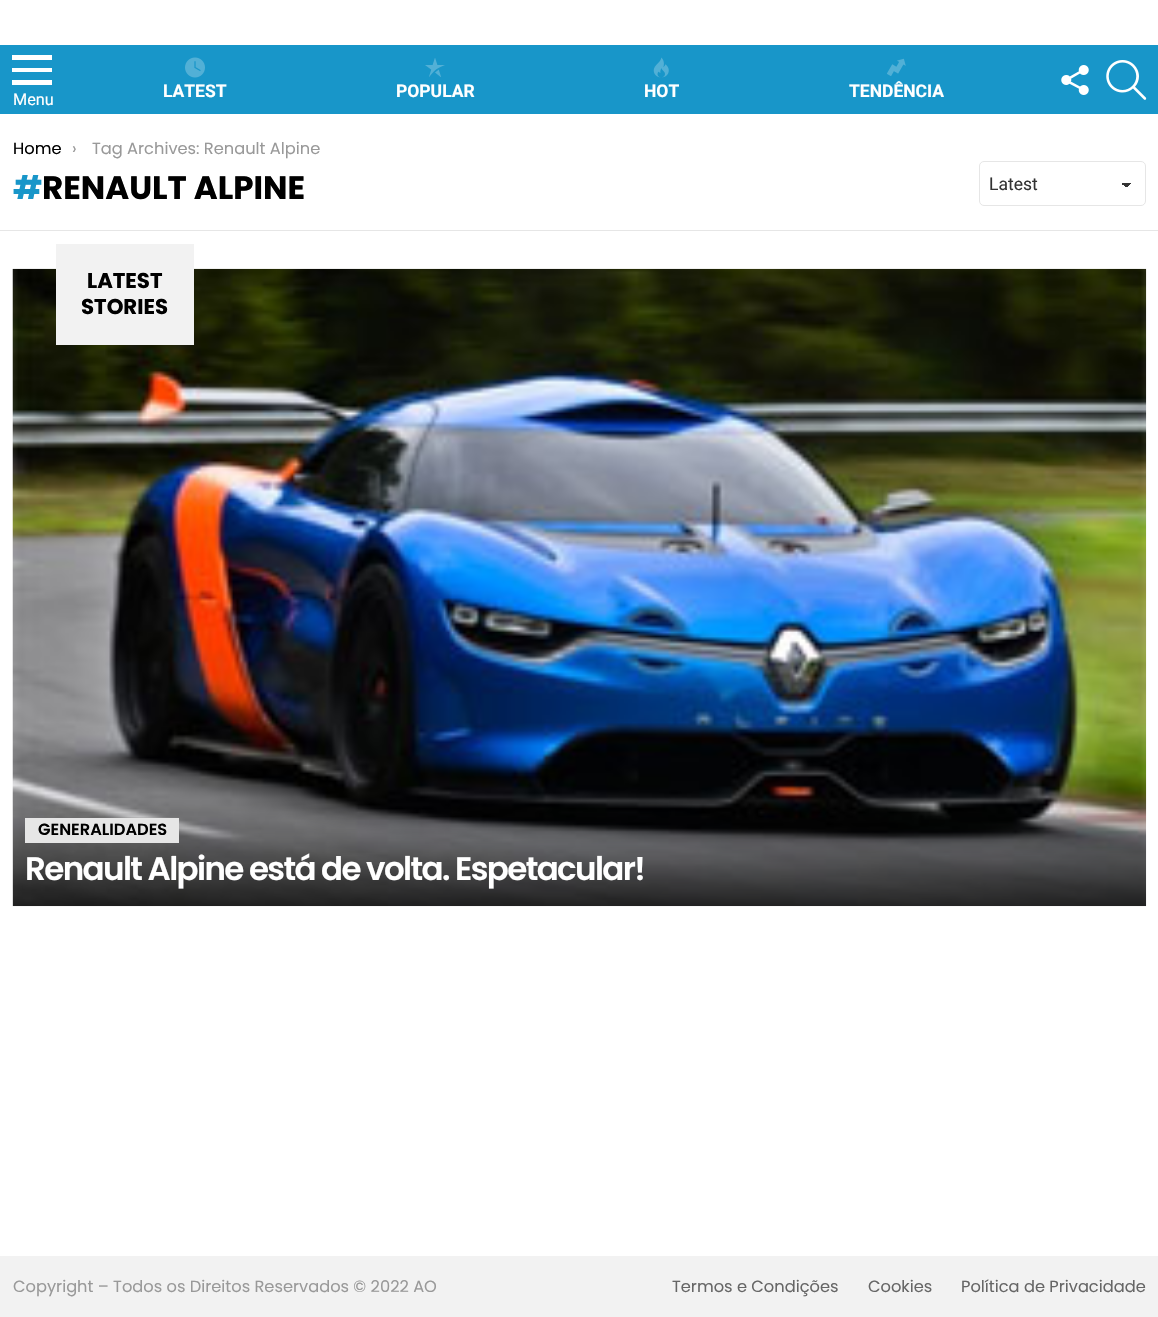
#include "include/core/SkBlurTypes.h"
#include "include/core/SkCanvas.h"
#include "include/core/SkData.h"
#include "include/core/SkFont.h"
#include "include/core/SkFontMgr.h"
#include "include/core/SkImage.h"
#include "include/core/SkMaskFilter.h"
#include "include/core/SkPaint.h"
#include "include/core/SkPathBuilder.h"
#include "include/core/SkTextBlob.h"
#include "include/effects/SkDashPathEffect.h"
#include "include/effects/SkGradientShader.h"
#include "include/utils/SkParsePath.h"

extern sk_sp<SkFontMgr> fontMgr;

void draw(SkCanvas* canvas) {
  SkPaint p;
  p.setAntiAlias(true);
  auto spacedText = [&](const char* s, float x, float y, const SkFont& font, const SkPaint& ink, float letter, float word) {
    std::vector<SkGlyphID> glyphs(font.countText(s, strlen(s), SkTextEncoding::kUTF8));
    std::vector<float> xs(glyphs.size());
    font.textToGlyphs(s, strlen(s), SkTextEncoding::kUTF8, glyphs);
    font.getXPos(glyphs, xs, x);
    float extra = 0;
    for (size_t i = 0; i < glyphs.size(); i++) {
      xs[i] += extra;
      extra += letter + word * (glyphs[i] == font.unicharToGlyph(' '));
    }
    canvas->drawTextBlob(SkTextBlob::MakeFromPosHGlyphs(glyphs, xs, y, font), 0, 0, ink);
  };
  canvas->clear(SK_ColorWHITE);
  p.setColor(SkColorSetRGB(24, 150, 201));
  canvas->drawRect(SkRect::MakeLTRB(0, 45, 1158, 114), p);
  canvas->drawImageRect(SkImages::DeferredFromEncodedData(SkData::MakeFromFileName("images/1.png")), SkRect::MakeLTRB(185, 57, 205, 78), SkSamplingOptions());
  canvas->drawImageRect(SkImages::DeferredFromEncodedData(SkData::MakeFromFileName("images/2.png")), SkRect::MakeLTRB(425, 58, 445, 77), SkSamplingOptions());
  canvas->drawImageRect(SkImages::DeferredFromEncodedData(SkData::MakeFromFileName("images/3.png")), SkRect::MakeLTRB(653, 57, 669, 78), SkSamplingOptions());
  canvas->drawImageRect(SkImages::DeferredFromEncodedData(SkData::MakeFromFileName("images/4.png")), SkRect::MakeLTRB(887, 58, 906, 76), SkSamplingOptions());
  canvas->drawImageRect(SkImages::DeferredFromEncodedData(SkData::MakeFromFileName("images/5.png")), SkRect::MakeLTRB(1061, 65, 1089, 95), SkSamplingOptions());
  canvas->drawImageRect(SkImages::DeferredFromEncodedData(SkData::MakeFromFileName("images/6.png")), SkRect::MakeLTRB(1106, 60, 1147, 100), SkSamplingOptions());
  p.setColor(SK_ColorWHITE);
  canvas->drawPath(SkPathBuilder().moveTo(12, 55).lineTo(52, 55).lineTo(52, 60).lineTo(12, 60).close().moveTo(12, 68).lineTo(52, 68).lineTo(52, 72).lineTo(12, 72).close().moveTo(12, 80).lineTo(52, 80).lineTo(52, 85).lineTo(12, 85).close().detach(), p);
  {
    const SkColor colors[] = {SkColorSetRGB(51, 51, 51), SK_ColorWHITE};
    const float stops[] = {0.5f, 0.5f};
    const SkPoint ends[] = {{1127, 182}, {1132, 188}};
    p.setShader(SkGradientShader::MakeLinear(ends, colors, stops, 2, SkTileMode::kClamp));
    p.setAlpha(255);
  }
  canvas->drawRect(SkRect::MakeLTRB(1126, 183, 1133, 187), p);
  {
    const SkColor colors[] = {SK_ColorWHITE, SkColorSetRGB(51, 51, 51)};
    const float stops[] = {0.5f, 0.5f};
    const SkPoint ends[] = {{1120, 188}, {1126, 182}};
    p.setShader(SkGradientShader::MakeLinear(ends, colors, stops, 2, SkTileMode::kClamp));
    p.setAlpha(255);
  }
  canvas->drawRect(SkRect::MakeLTRB(1120, 183, 1126, 187), p);
  p.setStyle(SkPaint::kStroke_Style);
  p.setStrokeWidth(1);
  p.setShader(nullptr);
  p.setColor(SkColorSetRGB(230, 230, 230));
  canvas->drawRoundRect(SkRect::MakeLTRB(979.5f, 161.5f, 1145.5f, 205.5f), 4.5f, 4.5f, p);
  p.setStyle(SkPaint::kFill_Style);
  canvas->drawRect(SkRect::MakeLTRB(0, 230, 1158, 231), p);
  canvas->drawImageRect(SkImages::DeferredFromEncodedData(SkData::MakeFromFileName("images/7.png")), SkRect::MakeLTRB(12, 268, 1147, 907), SkSamplingOptions());
  p.setColor(SkColorSetRGB(242, 242, 242));
  canvas->drawRect(SkRect::MakeLTRB(56, 244, 194, 345), p);
  p.setColor(SkColorSetRGB(230, 230, 230));
  canvas->drawRect(SkRect::MakeLTRB(25, 818, 179, 843), p);
  p.setColor(SkColorSetRGB(242, 242, 242));
  canvas->drawRect(SkRect::MakeLTRB(0, 1256, 1158, 1317), p);
  SkFont font1(fontMgr->matchFamilyStyle("Roboto", SkFontStyle::Bold()), 17.5f);
  font1.setSubpixel(true);
  p.setColor(SK_ColorWHITE);
  canvas->drawString("LATEST", 163, 97, font1, p);
  canvas->drawString("POPULAR", 396, 97, font1, p);
  canvas->drawString("HOT", 644, 97, font1, p);
  canvas->drawString("TENDÊNCIA", 849, 97, font1, p);
  SkFont font2(fontMgr->matchFamilyStyle("Roboto", SkFontStyle::Normal()), 16.25f);
  font2.setSubpixel(true);
  canvas->drawString("Menu", 13, 105, font2, p);
  SkFont font3(fontMgr->matchFamilyStyle("Poppins", SkFontStyle::Normal()), 16.25f);
  font3.setSubpixel(true);
  p.setColor(SK_ColorBLACK);
  canvas->drawString("Home", 13, 154, font3, p);
  p.setColor(SkColorSetRGB(153, 153, 153));
  canvas->drawString("›", 72, 154, font3, p);
  canvas->drawString("Tag Archives: Renault Alpine", 92, 154, font3, p);
  SkFont font4(fontMgr->matchFamilyStyle("Poppins", SkFontStyle::Bold()), 32.5f);
  font4.setSubpixel(true);
  p.setColor(SkColorSetRGB(24, 150, 201));
  canvas->drawString("#", 13, 199, font4, p);
  p.setColor(SK_ColorBLACK);
  canvas->drawString("RENAULT ALPINE", 42, 199, font4, p);
  SkFont font5(fontMgr->matchFamilyStyle("Roboto", SkFontStyle::Normal()), 17.5f);
  font5.setSubpixel(true);
  p.setColor(SkColorSetRGB(51, 51, 51));
  canvas->drawString("Latest", 989, 190, font5, p);
  SkFont font6(fontMgr->matchFamilyStyle("Poppins", SkFontStyle::Bold()), 21.25f);
  font6.setSubpixel(true);
  p.setColor(SK_ColorBLACK);
  canvas->drawString("LATEST", 87, 288, font6, p);
  canvas->drawString("STORIES", 81, 314, font6, p);
  SkFont font7(fontMgr->matchFamilyStyle("Poppins", SkFontStyle(600, SkFontStyle::kNormal_Width, SkFontStyle::kUpright_Slant)), 16.25f);
  font7.setSubpixel(true);
  canvas->drawString("GENERALIDADES", 38, 835, font7, p);
  SkFont font8(fontMgr->matchFamilyStyle("Poppins", SkFontStyle(600, SkFontStyle::kNormal_Width, SkFontStyle::kUpright_Slant)), 32.5f);
  font8.setSubpixel(true);
  p.setColor(SK_ColorWHITE);
  spacedText("Renault Alpine está de volta. Espetacular!", 25, 880, font8, p, -1.6f, 0);
  p.setColor(SkColorSetRGB(153, 153, 153));
  canvas->drawString("Copyright – Todos os Direitos Reservados © 2022 AO", 13, 1292, font3, p);
  p.setColor(SkColorSetRGB(102, 102, 102));
  canvas->drawString("Termos e Condições", 672, 1292, font3, p);
  canvas->drawString("Cookies", 868, 1292, font3, p);
  canvas->drawString("Política de Privacidade", 961, 1292, font3, p);
}
